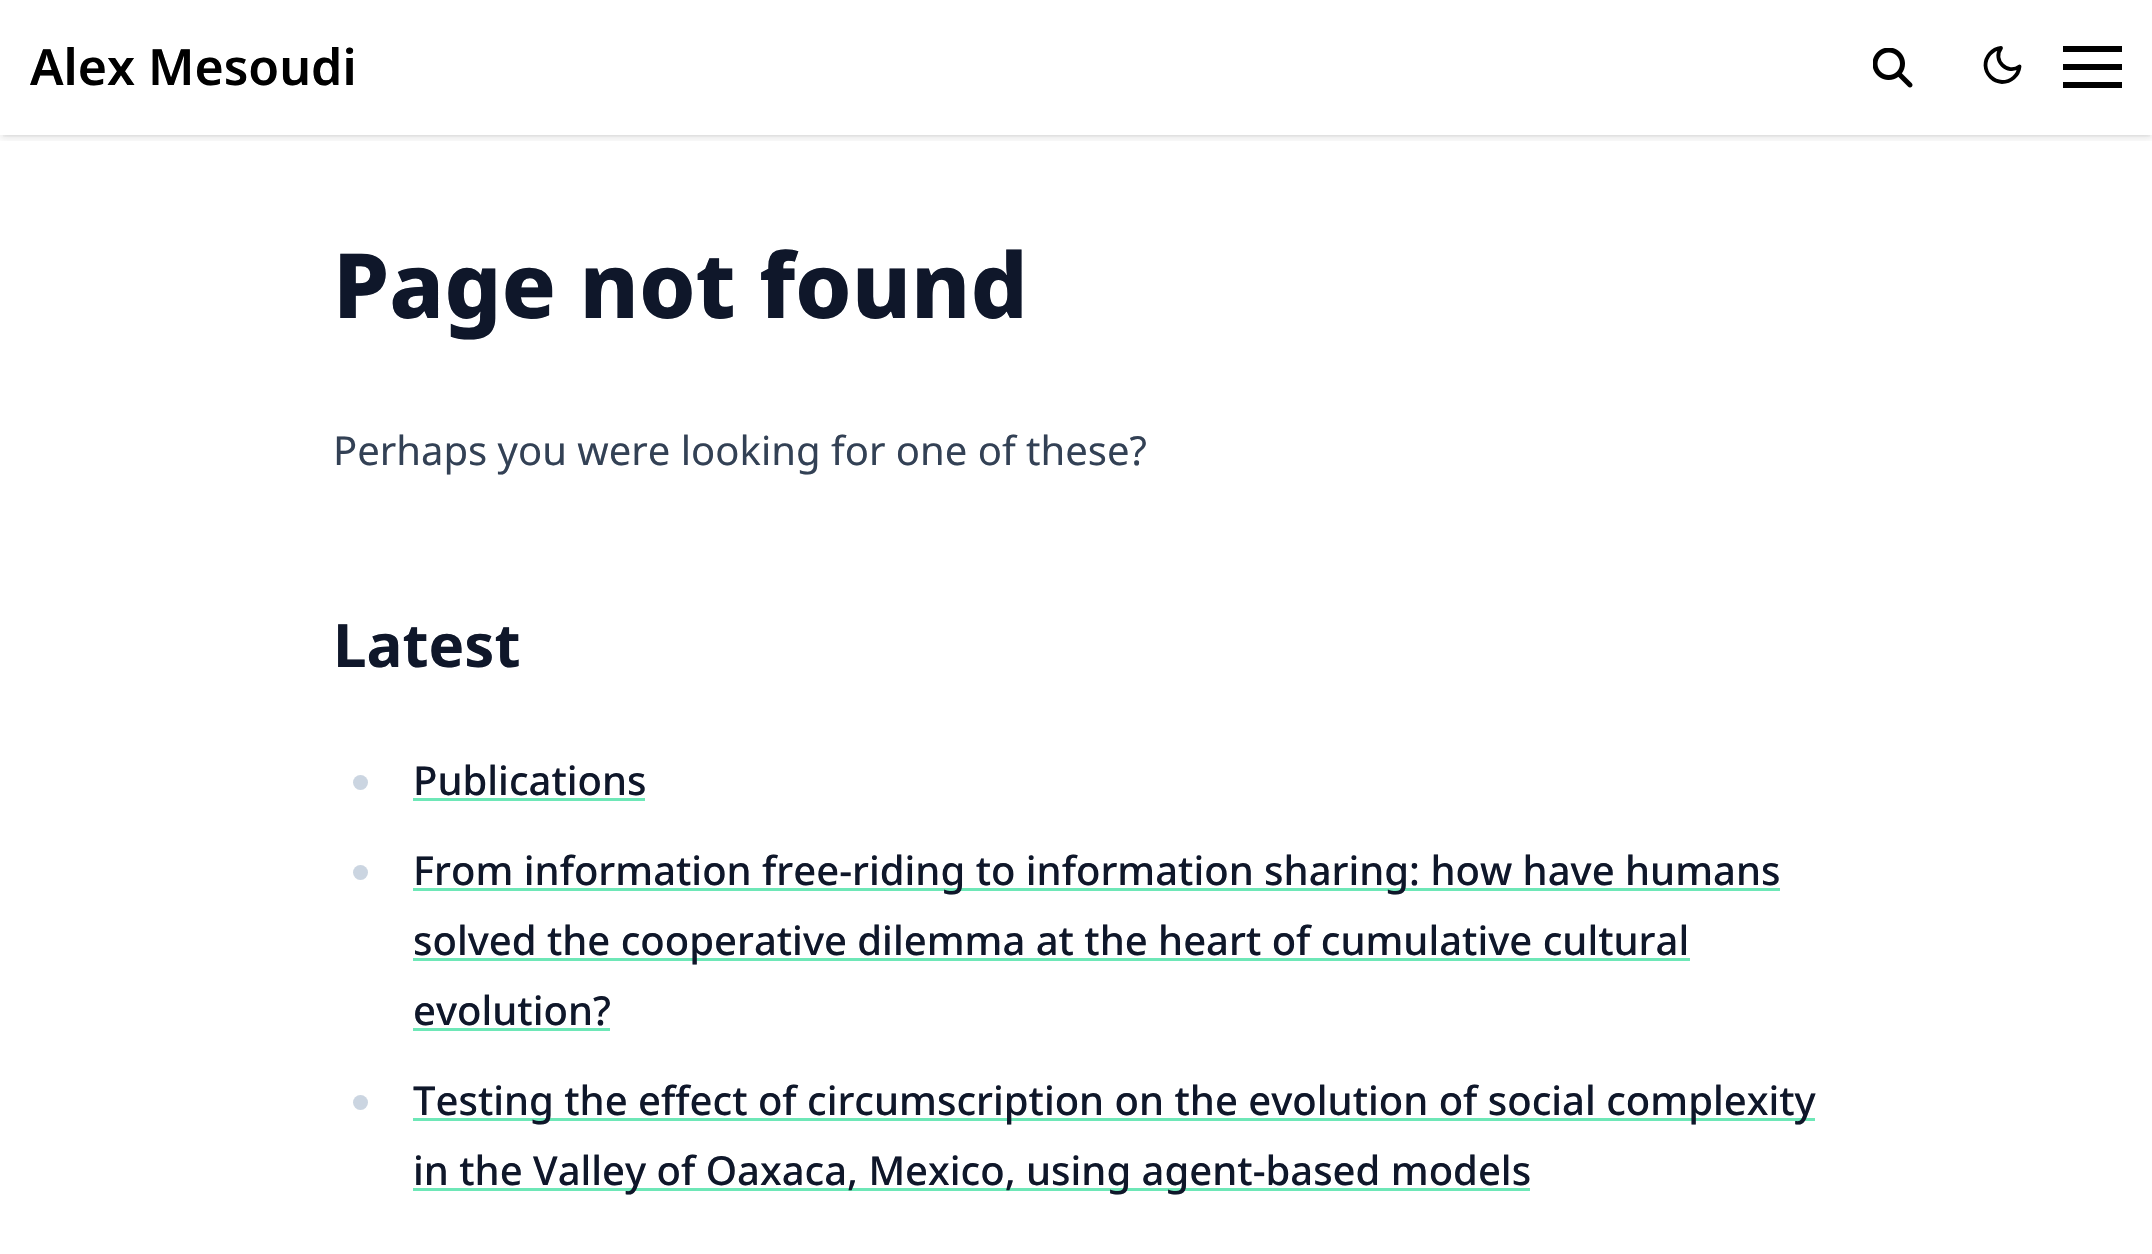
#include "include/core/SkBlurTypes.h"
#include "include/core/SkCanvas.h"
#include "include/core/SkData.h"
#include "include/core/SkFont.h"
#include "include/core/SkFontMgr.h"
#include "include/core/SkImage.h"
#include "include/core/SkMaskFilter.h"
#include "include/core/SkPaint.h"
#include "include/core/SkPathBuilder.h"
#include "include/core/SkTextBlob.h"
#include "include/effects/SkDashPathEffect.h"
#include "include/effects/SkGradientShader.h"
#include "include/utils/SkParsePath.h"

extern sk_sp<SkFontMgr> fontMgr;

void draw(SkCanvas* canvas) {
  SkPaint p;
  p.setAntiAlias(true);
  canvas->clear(SK_ColorWHITE);
  canvas->save();
  canvas->clipRect(SkRect::MakeLTRB(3, 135, 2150, 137));
  p.setColor(SkColorSetARGB(26, 0, 0, 0));
  p.setMaskFilter(SkMaskFilter::MakeBlur(kNormal_SkBlurStyle, 2.5f));
  canvas->drawRect(SkRect::MakeLTRB(3, 5, 2150, 135), p);
  p.setMaskFilter(nullptr);
  canvas->restore();
  canvas->save();
  canvas->clipRect(SkRect::MakeLTRB(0, 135, 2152, 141));
  p.setMaskFilter(SkMaskFilter::MakeBlur(kNormal_SkBlurStyle, 4));
  canvas->drawRect(SkRect::MakeLTRB(0, 3, 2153, 138), p);
  p.setMaskFilter(nullptr);
  canvas->restore();
  canvas->drawImageRect(SkImages::DeferredFromEncodedData(SkData::MakeFromFileName("images/1.png")), SkRect::MakeLTRB(1873, 48, 1913, 88), SkSamplingOptions());
  p.setStyle(SkPaint::kStroke_Style);
  p.setStrokeWidth(3.8f);
  p.setStrokeCap(SkPaint::kRound_Cap);
  p.setStrokeJoin(SkPaint::kRound_Join);
  p.setColor(SK_ColorBLACK);
  canvas->drawPath(SkPathBuilder().moveTo(2019.5f, 66.5f).cubicTo(2018.5f, 75.5f, 2011, 82, 2002, 82).cubicTo(1993, 81.5f, 1986, 74.5f, 1985.5f, 65.5f).cubicTo(1985.5f, 56.5f, 1992, 49, 2001, 48).cubicTo(1992, 60, 2007.5f, 75.5f, 2019.5f, 66.5f).close().detach(), p);
  canvas->save();
  canvas->clipRect(SkRect::MakeLTRB(2063, 38, 2123, 98));
  p.setStyle(SkPaint::kFill_Style);
  canvas->drawPath(SkPathBuilder().moveTo(2062, 46).lineTo(2122, 46).lineTo(2122, 52).lineTo(2062, 52).close().moveTo(2062, 64).lineTo(2122, 64).lineTo(2122, 70).lineTo(2062, 70).close().moveTo(2062, 82).lineTo(2122, 82).lineTo(2122, 88).lineTo(2062, 88).lineTo(2062, 38).close().detach(), p);
  canvas->restore();
  p.setColor(SkColorSetRGB(203, 213, 225));
  canvas->drawCircle(360.5f, 782.5f, 7.5f, p);
  p.setColor(SkColorSetRGB(110, 231, 183));
  canvas->drawRect(SkRect::MakeLTRB(413, 798, 645, 801), p);
  p.setColor(SkColorSetRGB(203, 213, 225));
  canvas->drawCircle(360.5f, 872.5f, 7.5f, p);
  p.setColor(SkColorSetRGB(110, 231, 183));
  canvas->drawRect(SkRect::MakeLTRB(413, 888, 1780, 891), p);
  canvas->drawRect(SkRect::MakeLTRB(413, 958, 1690, 961), p);
  canvas->drawRect(SkRect::MakeLTRB(413, 1028, 610, 1031), p);
  p.setColor(SkColorSetRGB(203, 213, 225));
  canvas->drawCircle(360.5f, 1102.5f, 7.5f, p);
  p.setColor(SkColorSetRGB(110, 231, 183));
  canvas->drawRect(SkRect::MakeLTRB(413, 1118, 1815, 1121), p);
  canvas->drawRect(SkRect::MakeLTRB(413, 1188, 1530, 1191), p);
  SkFont font1(fontMgr->matchFamilyStyle("Noto Sans", SkFontStyle(600, SkFontStyle::kNormal_Width, SkFontStyle::kUpright_Slant)), 50);
  font1.setSubpixel(true);
  p.setColor(SK_ColorBLACK);
  canvas->drawString("Alex Mesoudi", 30, 85, font1, p);
  SkFont font2(fontMgr->matchFamilyStyle("Noto Sans", SkFontStyle(800, SkFontStyle::kNormal_Width, SkFontStyle::kUpright_Slant)), 90);
  font2.setSubpixel(true);
  p.setColor(SkColorSetRGB(15, 23, 42));
  canvas->drawString("Page not found", 333, 318, font2, p);
  SkFont font3(fontMgr->matchFamilyStyle("Noto Sans", SkFontStyle::Normal()), 40);
  font3.setSubpixel(true);
  p.setColor(SkColorSetRGB(51, 65, 85));
  canvas->drawString("Perhaps you were looking for one of these?", 333, 465, font3, p);
  SkFont font4(fontMgr->matchFamilyStyle("Noto Sans", SkFontStyle::Bold()), 60);
  font4.setSubpixel(true);
  p.setColor(SkColorSetRGB(15, 23, 42));
  canvas->drawString("Latest", 333, 667, font4, p);
  SkFont font5(fontMgr->matchFamilyStyle("Noto Sans", SkFontStyle(500, SkFontStyle::kNormal_Width, SkFontStyle::kUpright_Slant)), 40);
  font5.setSubpixel(true);
  canvas->drawString("Publications", 413, 795, font5, p);
  canvas->drawString("From information free-riding to information sharing: how have humans", 413, 885, font5, p);
  canvas->drawString("solved the cooperative dilemma at the heart of cumulative cultural", 413, 955, font5, p);
  canvas->drawString("evolution?", 413, 1025, font5, p);
  canvas->drawString("Testing the effect of circumscription on the evolution of social complexity", 413, 1115, font5, p);
  canvas->drawString("in the Valley of Oaxaca, Mexico, using agent-based models", 413, 1185, font5, p);
}
